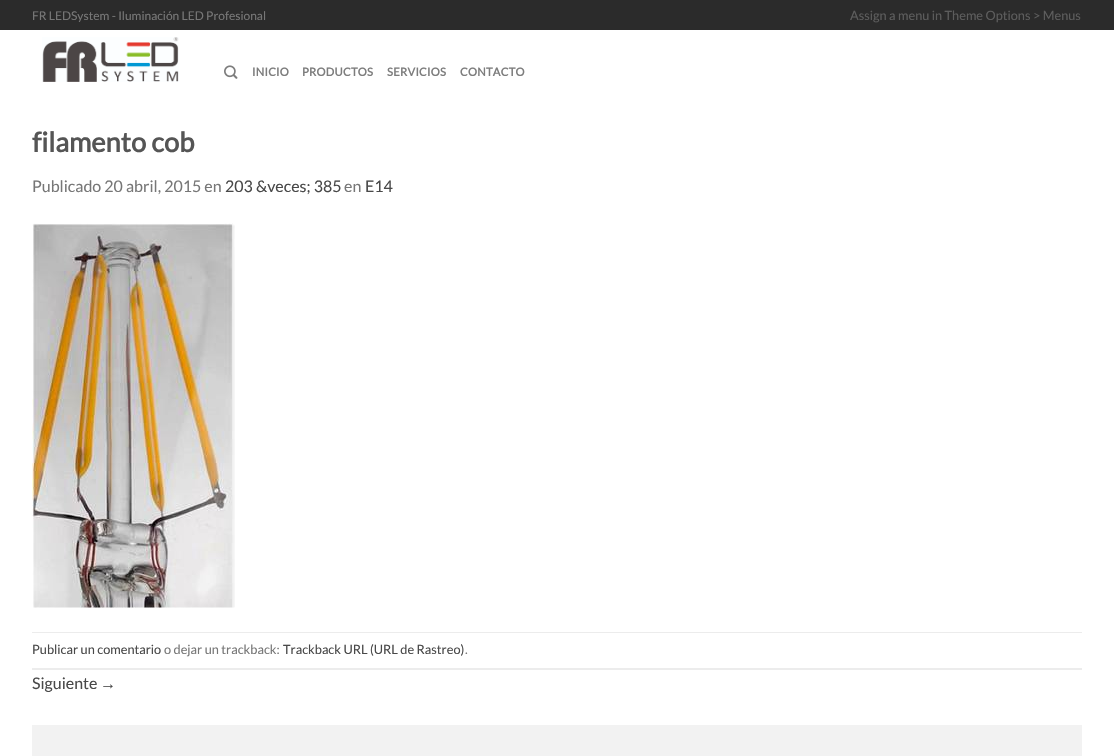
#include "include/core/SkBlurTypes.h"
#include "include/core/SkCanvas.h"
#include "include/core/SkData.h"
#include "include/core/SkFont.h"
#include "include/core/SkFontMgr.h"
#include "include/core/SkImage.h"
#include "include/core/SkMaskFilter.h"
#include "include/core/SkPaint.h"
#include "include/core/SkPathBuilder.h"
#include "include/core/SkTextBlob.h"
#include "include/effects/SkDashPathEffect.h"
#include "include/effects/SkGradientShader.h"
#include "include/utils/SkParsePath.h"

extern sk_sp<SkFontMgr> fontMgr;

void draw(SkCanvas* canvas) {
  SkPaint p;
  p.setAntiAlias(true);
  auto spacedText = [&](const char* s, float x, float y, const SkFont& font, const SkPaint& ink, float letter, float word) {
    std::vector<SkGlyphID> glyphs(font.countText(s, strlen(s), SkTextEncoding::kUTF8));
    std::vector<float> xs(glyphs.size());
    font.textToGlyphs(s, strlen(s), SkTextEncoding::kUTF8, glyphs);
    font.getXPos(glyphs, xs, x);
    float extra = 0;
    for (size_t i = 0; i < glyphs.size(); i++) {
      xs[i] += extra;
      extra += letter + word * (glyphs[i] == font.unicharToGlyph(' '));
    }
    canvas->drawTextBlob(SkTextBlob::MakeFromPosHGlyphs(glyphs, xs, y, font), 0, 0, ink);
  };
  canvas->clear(SK_ColorWHITE);
  p.setColor(SkColorSetRGB(43, 43, 43));
  canvas->drawRect(SkRect::MakeLTRB(0, 0, 1114, 30), p);
  canvas->drawImageRect(SkImages::DeferredFromEncodedData(SkData::MakeFromFileName("images/1.png")), SkRect::MakeLTRB(42, 37, 179, 82), SkSamplingOptions());
  canvas->drawImageRect(SkImages::DeferredFromEncodedData(SkData::MakeFromFileName("images/2.png")), SkRect::MakeLTRB(224, 65, 238, 79), SkSamplingOptions());
  canvas->drawImageRect(SkImages::DeferredFromEncodedData(SkData::MakeFromFileName("images/3.png")), SkRect::MakeLTRB(32, 223, 235, 608), SkSamplingOptions());
  p.setColor(SkColorSetRGB(236, 236, 236));
  canvas->drawRect(SkRect::MakeLTRB(32, 632, 1082, 633), p);
  canvas->drawRect(SkRect::MakeLTRB(32, 668, 1082, 670), p);
  p.setColor(SkColorSetRGB(242, 242, 242));
  canvas->drawRect(SkRect::MakeLTRB(32, 725, 1082, 756), p);
  SkFont font1(fontMgr->matchFamilyStyle("Lato", SkFontStyle::Normal()), 12);
  font1.setSubpixel(true);
  p.setColor(SkColorSetRGB(119, 119, 119));
  canvas->drawString("FR LEDSystem - Iluminación LED Profesional", 32, 20, font1, p);
  SkFont font2(fontMgr->matchFamilyStyle("Lato", SkFontStyle::Normal()), 12.75f);
  font2.setSubpixel(true);
  p.setColor(SkColorSetRGB(93, 93, 93));
  canvas->drawString("Assign a menu in Theme Options > Menus", 850, 20, font2, p);
  SkFont font3(fontMgr->matchFamilyStyle("Lato", SkFontStyle::Bold()), 11.25f);
  font3.setSubpixel(true);
  p.setColor(SkColorSetRGB(125, 125, 125));
  spacedText("INICIO", 252, 76, font3, p, 0.25f, 0);
  spacedText("PRODUCTOS", 302, 76, font3, p, 0.25f, 0);
  spacedText("SERVICIOS", 387, 76, font3, p, 0.25f, 0);
  spacedText("CONTACTO", 460, 76, font3, p, 0.25f, 0);
  SkFont font4(fontMgr->matchFamilyStyle("Lato", SkFontStyle::Bold()), 27.25f);
  font4.setSubpixel(true);
  p.setColor(SkColorSetRGB(85, 85, 85));
  canvas->drawString("filamento cob", 32, 152, font4, p);
  SkFont font5(fontMgr->matchFamilyStyle("Lato", SkFontStyle::Normal()), 16);
  font5.setSubpixel(true);
  p.setColor(SkColorSetRGB(119, 119, 119));
  canvas->drawString("Publicado 20 abril, 2015 en", 32, 192, font5, p);
  p.setColor(SkColorSetRGB(73, 73, 73));
  canvas->drawString("203 &veces; 385", 225, 192, font5, p);
  p.setColor(SkColorSetRGB(119, 119, 119));
  canvas->drawString("en", 344, 192, font5, p);
  p.setColor(SkColorSetRGB(73, 73, 73));
  canvas->drawString("E14", 365, 192, font5, p);
  canvas->drawString("Publicar un comentario", 32, 654, font2, p);
  p.setColor(SkColorSetRGB(119, 119, 119));
  canvas->drawString("o dejar un trackback:", 164, 654, font2, p);
  p.setColor(SkColorSetRGB(73, 73, 73));
  canvas->drawString("Trackback URL (URL de Rastreo)", 283, 654, font2, p);
  p.setColor(SkColorSetRGB(119, 119, 119));
  canvas->drawString(".", 465, 654, font2, p);
  p.setColor(SkColorSetRGB(73, 73, 73));
  canvas->drawString("Siguiente", 32, 689, font5, p);
  SkFont font6(fontMgr->matchFamilyStyle("Liberation Sans", SkFontStyle::Normal()), 16);
  font6.setSubpixel(true);
  canvas->drawString("→", 100, 689, font6, p);
}
